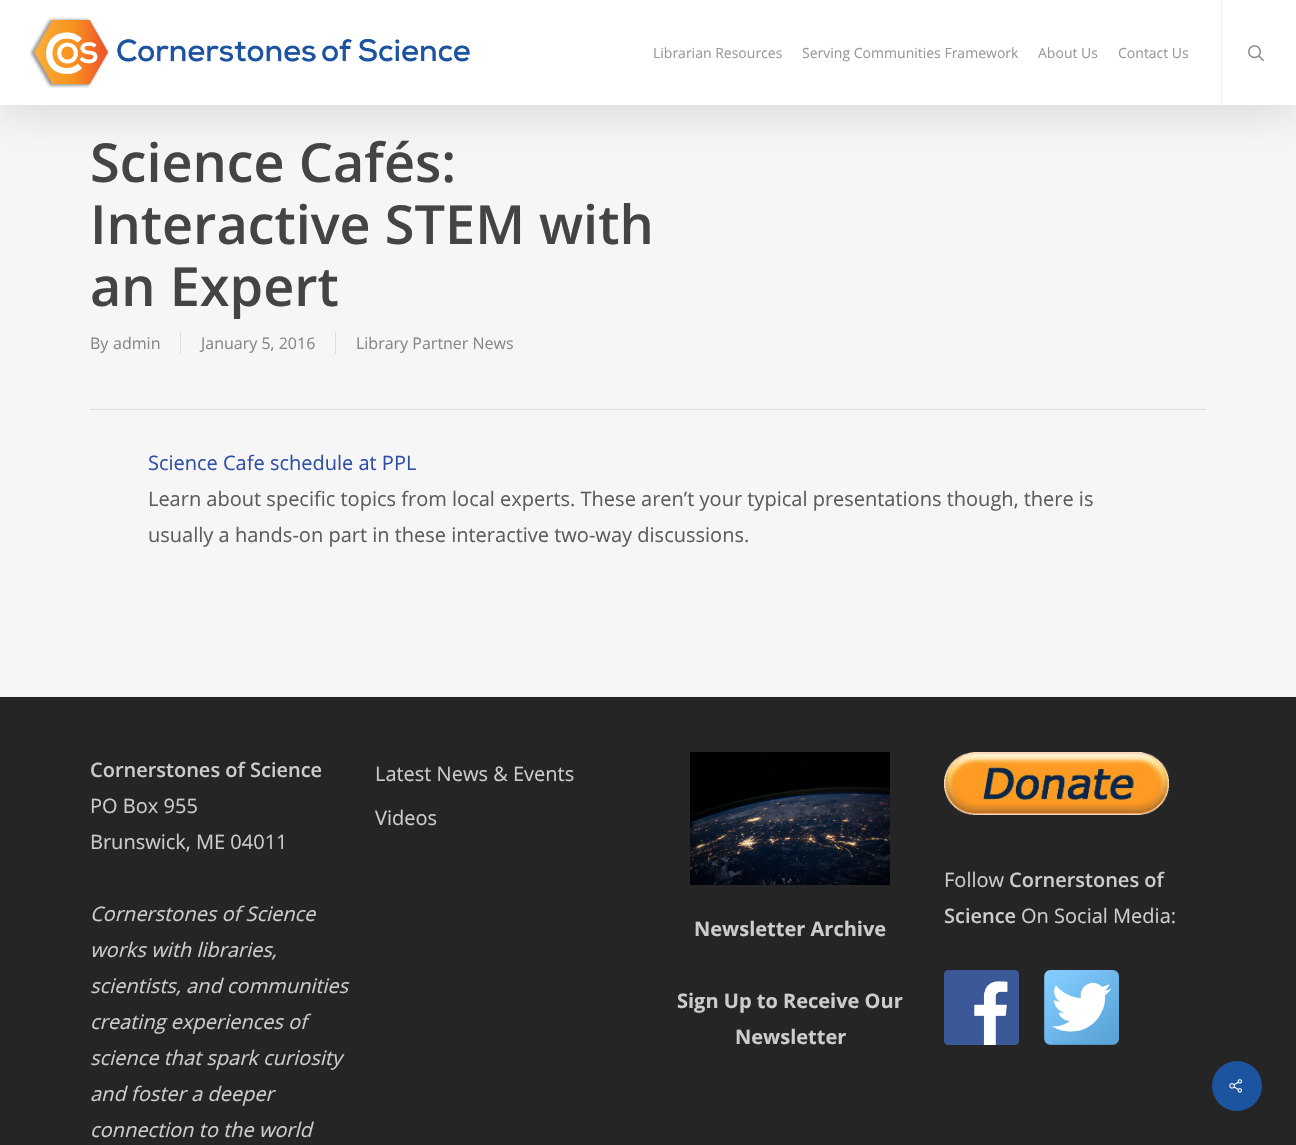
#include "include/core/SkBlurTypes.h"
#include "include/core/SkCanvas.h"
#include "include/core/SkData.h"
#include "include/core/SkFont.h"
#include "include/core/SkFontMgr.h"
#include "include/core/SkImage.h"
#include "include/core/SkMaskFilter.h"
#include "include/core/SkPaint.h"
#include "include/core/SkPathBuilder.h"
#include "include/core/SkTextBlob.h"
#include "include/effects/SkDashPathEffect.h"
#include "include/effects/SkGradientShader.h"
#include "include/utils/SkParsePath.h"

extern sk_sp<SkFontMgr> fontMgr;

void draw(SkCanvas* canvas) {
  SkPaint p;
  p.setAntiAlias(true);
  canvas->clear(SkColorSetRGB(246, 246, 246));
  p.setColor(SkColorSetARGB(38, 0, 0, 0));
  p.setMaskFilter(SkMaskFilter::MakeBlur(kNormal_SkBlurStyle, 22.5f));
  canvas->drawRect(SkRect::MakeLTRB(0, 3, 1296, 108), p);
  p.setMaskFilter(nullptr);
  p.setColor(SK_ColorWHITE);
  canvas->drawRect(SkRect::MakeLTRB(0, 0, 1296, 105), p);
  canvas->drawImageRect(SkImages::DeferredFromEncodedData(SkData::MakeFromFileName("images/1.png")), SkRect::MakeLTRB(29, 17, 470, 88), SkSamplingOptions());
  p.setColor(SkColorSetRGB(237, 237, 237));
  canvas->drawRect(SkRect::MakeLTRB(1221, 0, 1222, 105), p);
  canvas->drawImageRect(SkImages::DeferredFromEncodedData(SkData::MakeFromFileName("images/2.png")), SkRect::MakeLTRB(1248, 45, 1264, 61), SkSamplingOptions());
  p.setColor(SkColorSetRGB(221, 221, 221));
  canvas->drawRect(SkRect::MakeLTRB(90, 409, 1206, 410), p);
  canvas->drawRect(SkRect::MakeLTRB(180, 332, 181, 354), p);
  canvas->drawRect(SkRect::MakeLTRB(335, 332, 336, 354), p);
  p.setColor(SkColorSetRGB(37, 37, 37));
  canvas->drawRect(SkRect::MakeLTRB(0, 697, 1296, 1145), p);
  canvas->drawImageRect(SkImages::DeferredFromEncodedData(SkData::MakeFromFileName("images/3.png")), SkRect::MakeLTRB(944, 752, 1169, 815), SkSamplingOptions());
  canvas->drawImageRect(SkImages::DeferredFromEncodedData(SkData::MakeFromFileName("images/4.png")), SkRect::MakeLTRB(944, 970, 1019, 1045), SkSamplingOptions());
  canvas->drawImageRect(SkImages::DeferredFromEncodedData(SkData::MakeFromFileName("images/5.png")), SkRect::MakeLTRB(1044, 970, 1119, 1045), SkSamplingOptions());
  canvas->drawImageRect(SkImages::DeferredFromEncodedData(SkData::MakeFromFileName("images/6.png")), SkRect::MakeLTRB(690, 752, 890, 885), SkSamplingOptions());
  p.setColor(SkColorSetRGB(29, 84, 160));
  canvas->drawCircle(1237, 1086, 25, p);
  canvas->drawImageRect(SkImages::DeferredFromEncodedData(SkData::MakeFromFileName("images/7.png")), SkRect::MakeLTRB(1229, 1079, 1242, 1093), SkSamplingOptions());
  SkFont font1(fontMgr->matchFamilyStyle("Open Sans", SkFontStyle::Normal()), 14);
  font1.setSubpixel(true);
  p.setColor(SkColorSetRGB(153, 153, 153));
  canvas->drawString("Librarian Resources", 653, 58, font1, p);
  canvas->drawString("Serving Communities Framework", 802, 58, font1, p);
  canvas->drawString("About Us", 1038, 58, font1, p);
  canvas->drawString("Contact Us", 1118, 58, font1, p);
  SkFont font2(fontMgr->matchFamilyStyle("Open Sans", SkFontStyle(600, SkFontStyle::kNormal_Width, SkFontStyle::kUpright_Slant)), 54);
  font2.setSubpixel(true);
  p.setColor(SkColorSetRGB(68, 68, 68));
  canvas->drawString("Science Cafés:", 90, 182, font2, p);
  canvas->drawString("Interactive STEM with", 90, 244, font2, p);
  canvas->drawString("an Expert", 90, 306, font2, p);
  SkFont font3(fontMgr->matchFamilyStyle("Open Sans", SkFontStyle::Normal()), 16);
  font3.setSubpixel(true);
  p.setColor(SkColorSetRGB(135, 135, 135));
  canvas->drawString("By", 90, 349, font3, p);
  canvas->drawString("admin", 113, 349, font3, p);
  canvas->drawString("January 5, 2016", 201, 349, font3, p);
  canvas->drawString("Library Partner News", 356, 349, font3, p);
  SkFont font4(fontMgr->matchFamilyStyle("Open Sans", SkFontStyle::Normal()), 20);
  font4.setSubpixel(true);
  p.setColor(SkColorSetRGB(48, 79, 164));
  canvas->drawString("Science Cafe schedule at PPL", 148, 470, font4, p);
  p.setColor(SkColorSetRGB(93, 93, 93));
  canvas->drawString("Learn about specific topics from local experts. These aren’t your typical presentations though, there is", 148, 506, font4, p);
  canvas->drawString("usually a hands-on part in these interactive two-way discussions.", 148, 542, font4, p);
  SkFont font5(fontMgr->matchFamilyStyle("Open Sans", SkFontStyle(600, SkFontStyle::kNormal_Width, SkFontStyle::kUpright_Slant)), 20);
  font5.setSubpixel(true);
  p.setColor(SkColorSetRGB(204, 204, 204));
  canvas->drawString("Cornerstones of Science", 90, 777, font5, p);
  canvas->drawString("PO Box 955", 90, 813, font4, p);
  canvas->drawString("Brunswick, ME 04011", 90, 849, font4, p);
  SkFont font6(fontMgr->matchFamilyStyle("Open Sans", SkFontStyle::Italic()), 20);
  font6.setSubpixel(true);
  canvas->drawString("Cornerstones of Science", 90, 921, font6, p);
  canvas->drawString("works with libraries,", 90, 957, font6, p);
  canvas->drawString("scientists, and communities", 90, 993, font6, p);
  canvas->drawString("creating experiences of", 90, 1029, font6, p);
  canvas->drawString("science that spark curiosity", 90, 1065, font6, p);
  canvas->drawString("and foster a deeper", 90, 1101, font6, p);
  canvas->drawString("connection to the world", 90, 1137, font6, p);
  canvas->drawString("Latest News & Events", 375, 781, font4, p);
  canvas->drawString("Videos", 375, 825, font4, p);
  canvas->drawString("Follow", 944, 887, font4, p);
  canvas->drawString("Cornerstones of", 1009, 887, font5, p);
  canvas->drawString("Science", 944, 923, font5, p);
  canvas->drawString("On Social Media:", 1021, 923, font4, p);
  SkFont font7(fontMgr->matchFamilyStyle("Open Sans", SkFontStyle::Bold()), 20);
  font7.setSubpixel(true);
  canvas->drawString("Newsletter Archive", 694, 936, font7, p);
  canvas->drawString("Sign Up to Receive Our", 677, 1008, font7, p);
  canvas->drawString("Newsletter", 735, 1044, font7, p);
}
